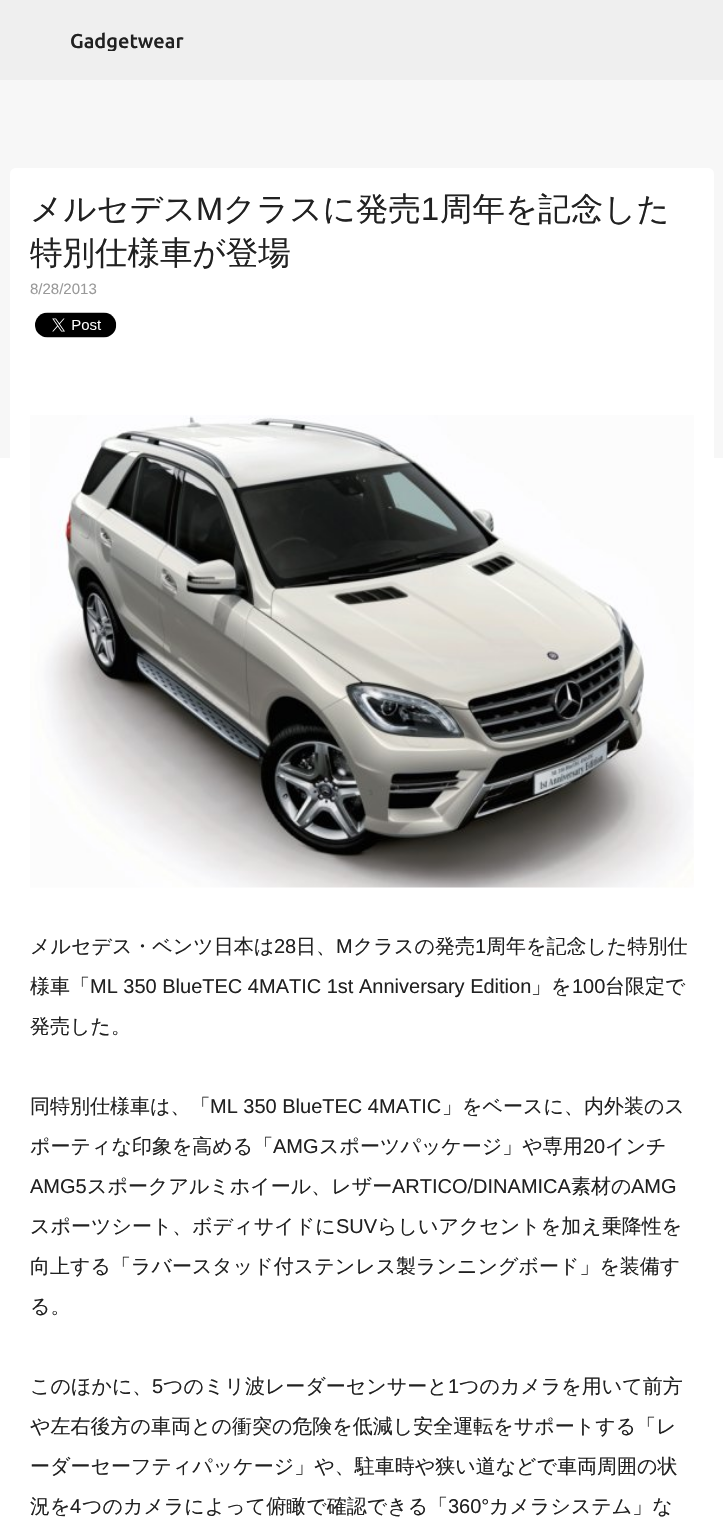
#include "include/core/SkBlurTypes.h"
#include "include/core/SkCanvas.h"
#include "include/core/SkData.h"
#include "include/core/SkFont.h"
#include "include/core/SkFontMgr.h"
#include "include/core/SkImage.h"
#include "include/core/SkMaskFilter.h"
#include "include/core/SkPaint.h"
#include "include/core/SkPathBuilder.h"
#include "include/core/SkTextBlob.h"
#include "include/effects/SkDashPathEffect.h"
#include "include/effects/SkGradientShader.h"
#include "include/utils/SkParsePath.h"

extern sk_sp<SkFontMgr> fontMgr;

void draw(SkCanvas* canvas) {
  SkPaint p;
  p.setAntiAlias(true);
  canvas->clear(SkColorSetRGB(247, 247, 247));
  p.setColor(SkColorSetRGB(239, 239, 239));
  canvas->drawRect(SkRect::MakeLTRB(0, 0, 723, 80), p);
  p.setColor(SK_ColorWHITE);
  canvas->drawRect(SkRect::MakeLTRB(0, 458, 723, 1520), p);
  canvas->drawPath(SkPathBuilder().moveTo(16, 168).lineTo(708, 168).cubicTo(711.5f, 168, 714, 170.5f, 714, 174).lineTo(714, 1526).lineTo(10, 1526).lineTo(10, 174).cubicTo(10, 170.5f, 12.5f, 168, 16, 168).close().detach(), p);
  canvas->drawImageRect(SkImages::DeferredFromEncodedData(SkData::MakeFromFileName("images/1.png")), SkRect::MakeLTRB(35, 312, 117, 338), SkSamplingOptions());
  canvas->drawImageRect(SkImages::DeferredFromEncodedData(SkData::MakeFromFileName("images/2.png")), SkRect::MakeLTRB(30, 415, 694, 888), SkSamplingOptions());
  canvas->save();
  canvas->clipRect(SkRect::MakeLTRB(70, 29, 654, 51));
  SkFont font1(fontMgr->matchFamilyStyle("Ubuntu", SkFontStyle(500, SkFontStyle::kNormal_Width, SkFontStyle::kUpright_Slant)), 20);
  font1.setSubpixel(true);
  p.setColor(SkColorSetRGB(33, 33, 33));
  canvas->drawString("Gadgetwear", 70, 48, font1, p);
  canvas->restore();
  SkFont font2(fontMgr->matchFamilyStyle("WenQuanYi Zen Hei", SkFontStyle(500, SkFontStyle::kNormal_Width, SkFontStyle::kUpright_Slant)), 32.5f);
  font2.setSubpixel(true);
  canvas->drawString("メルセデス", 30, 220, font2, p);
  SkFont font3(fontMgr->matchFamilyStyle("Liberation Sans", SkFontStyle::Normal()), 32.5f);
  font3.setSubpixel(true);
  canvas->drawString("M", 196, 220, font3, p);
  canvas->drawString("クラスに発売", 223, 220, font2, p);
  canvas->drawString("1", 421, 220, font3, p);
  canvas->drawString("周年を記念した", 440, 220, font2, p);
  canvas->drawString("特別仕様車が登場", 30, 264, font2, p);
  SkFont font4(fontMgr->matchFamilyStyle("Liberation Sans", SkFontStyle::Normal()), 15);
  font4.setSubpixel(true);
  p.setColor(SkColorSetRGB(153, 153, 153));
  canvas->drawString("8/28/2013", 30, 294, font4, p);
  SkFont font5(fontMgr->matchFamilyStyle("WenQuanYi Zen Hei", SkFontStyle(500, SkFontStyle::kNormal_Width, SkFontStyle::kUpright_Slant)), 20);
  font5.setSubpixel(true);
  p.setColor(SkColorSetRGB(33, 33, 33));
  canvas->drawString("メルセデス・ベンツ日本は", 30, 953, font5, p);
  SkFont font6(fontMgr->matchFamilyStyle("Liberation Sans", SkFontStyle::Normal()), 20);
  font6.setSubpixel(true);
  canvas->drawString("28", 274, 953, font6, p);
  canvas->drawString("日、", 296, 953, font5, p);
  canvas->drawString("M", 336, 953, font6, p);
  canvas->drawString("クラスの発売", 353, 953, font5, p);
  canvas->drawString("1", 475, 953, font6, p);
  canvas->drawString("周年を記念した特別仕", 486, 953, font5, p);
  canvas->drawString("様車「", 30, 993, font5, p);
  canvas->drawString("ML 350 BlueTEC 4MATIC 1st Anniversary Edition", 90, 993, font6, p);
  canvas->drawString("」を", 531, 993, font5, p);
  canvas->drawString("100", 572, 993, font6, p);
  canvas->drawString("台限定で", 605, 993, font5, p);
  canvas->drawString("発売した。", 30, 1033, font5, p);
  canvas->drawString("同特別仕様車は、「", 30, 1113, font5, p);
  canvas->drawString("ML 350 BlueTEC 4MATIC", 210, 1113, font6, p);
  canvas->drawString("」をベースに、内外装のス", 442, 1113, font5, p);
  canvas->drawString("ポーティな印象を高める「", 30, 1153, font5, p);
  canvas->drawString("AMG", 273, 1153, font6, p);
  canvas->drawString("スポーツパッケージ」や専用", 319, 1153, font5, p);
  canvas->drawString("20", 583, 1153, font6, p);
  canvas->drawString("インチ", 605, 1153, font5, p);
  canvas->drawString("AMG5", 30, 1193, font6, p);
  canvas->drawString("スポークアルミホイール、レザー", 87, 1193, font5, p);
  canvas->drawString("ARTICO/DINAMICA", 392, 1193, font6, p);
  canvas->drawString("素材の", 571, 1193, font5, p);
  canvas->drawString("AMG", 631, 1193, font6, p);
  canvas->drawString("スポーツシート、ボディサイドに", 30, 1233, font5, p);
  canvas->drawString("SUV", 336, 1233, font6, p);
  canvas->drawString("らしいアクセントを加え乗降性を", 377, 1233, font5, p);
  canvas->drawString("向上する「ラバースタッド付ステンレス製ランニングボード」を装備す", 30, 1273, font5, p);
  canvas->drawString("る。", 30, 1313, font5, p);
  canvas->drawString("このほかに、", 30, 1393, font5, p);
  canvas->drawString("5", 152, 1393, font6, p);
  canvas->drawString("つのミリ波レーダーセンサーと", 163, 1393, font5, p);
  canvas->drawString("1", 448, 1393, font6, p);
  canvas->drawString("つのカメラを用いて前方", 459, 1393, font5, p);
  canvas->drawString("や左右後方の車両との衝突の危険を低減し安全運転をサポートする「レ", 30, 1433, font5, p);
  canvas->drawString("ーダーセーフティパッケージ」や、駐車時や狭い道などで車両周囲の状", 30, 1473, font5, p);
  canvas->drawString("況を", 30, 1513, font5, p);
  canvas->drawString("4", 70, 1513, font6, p);
  canvas->drawString("つのカメラによって俯瞰で確認できる「", 82, 1513, font5, p);
  canvas->drawString("360°", 448, 1513, font6, p);
  canvas->drawString("カメラシステム」な", 489, 1513, font5, p);
}
